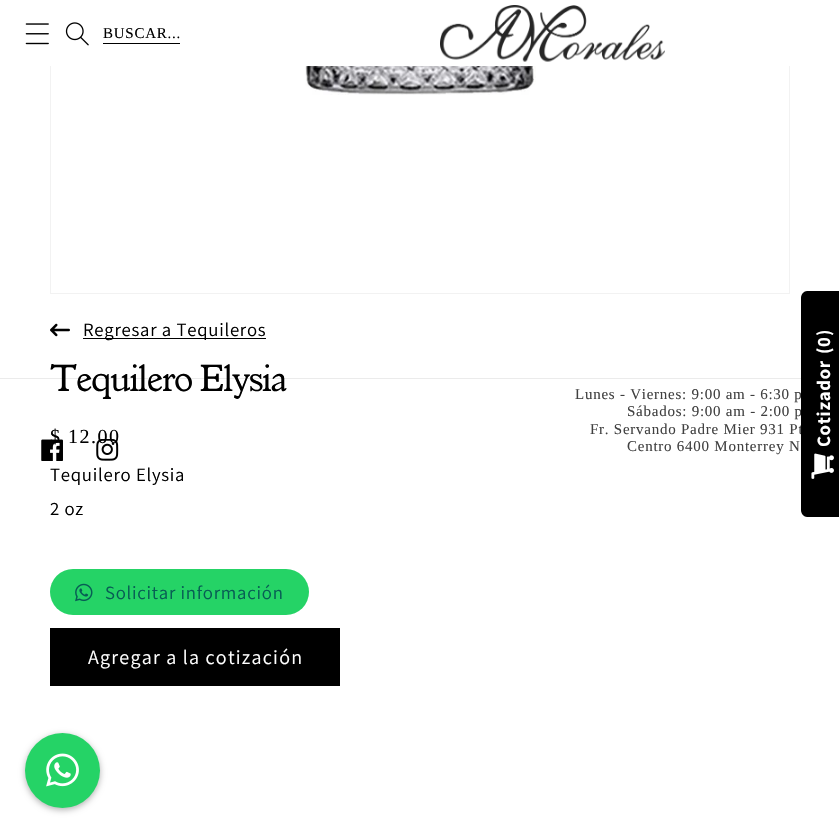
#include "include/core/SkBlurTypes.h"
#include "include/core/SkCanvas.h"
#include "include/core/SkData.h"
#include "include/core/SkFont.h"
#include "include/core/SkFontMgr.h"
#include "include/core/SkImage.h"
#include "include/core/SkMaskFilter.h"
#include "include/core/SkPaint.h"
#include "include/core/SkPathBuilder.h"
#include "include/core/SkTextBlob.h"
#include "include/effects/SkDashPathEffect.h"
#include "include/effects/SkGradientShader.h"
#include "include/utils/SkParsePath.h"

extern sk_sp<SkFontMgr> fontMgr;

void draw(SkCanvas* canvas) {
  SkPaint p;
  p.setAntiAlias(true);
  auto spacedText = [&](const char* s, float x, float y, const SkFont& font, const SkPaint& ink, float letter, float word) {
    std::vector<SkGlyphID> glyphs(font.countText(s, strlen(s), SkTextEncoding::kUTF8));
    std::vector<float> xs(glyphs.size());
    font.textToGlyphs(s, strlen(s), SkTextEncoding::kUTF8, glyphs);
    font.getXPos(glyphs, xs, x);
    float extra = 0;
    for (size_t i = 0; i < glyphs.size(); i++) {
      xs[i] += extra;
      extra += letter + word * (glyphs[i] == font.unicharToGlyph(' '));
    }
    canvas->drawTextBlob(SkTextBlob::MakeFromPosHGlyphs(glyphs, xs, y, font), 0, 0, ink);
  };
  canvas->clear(SK_ColorWHITE);
  p.setStyle(SkPaint::kStroke_Style);
  p.setStrokeWidth(1);
  p.setColor(SkColorSetRGB(242, 242, 242));
  canvas->drawRect(SkRect::MakeLTRB(50.5f, -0.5f, 789.5f, 293.5f), p);
  p.setStyle(SkPaint::kFill_Style);
  p.setColor(SK_ColorWHITE);
  canvas->drawRect(SkRect::MakeLTRB(50, 0, 790, 66), p);
  canvas->drawImageRect(SkImages::DeferredFromEncodedData(SkData::MakeFromFileName("images/1.png")), SkRect::MakeLTRB(25, 23, 49, 45), SkSamplingOptions());
  canvas->drawImageRect(SkImages::DeferredFromEncodedData(SkData::MakeFromFileName("images/2.png")), SkRect::MakeLTRB(65, 22, 89, 46), SkSamplingOptions());
  p.setColor(SK_ColorBLACK);
  canvas->drawRect(SkRect::MakeLTRB(103, 43, 180, 44), p);
  canvas->drawImageRect(SkImages::DeferredFromEncodedData(SkData::MakeFromFileName("images/3.png")), SkRect::MakeLTRB(440, 5, 665, 62), SkSamplingOptions());
  canvas->drawImageRect(SkImages::DeferredFromEncodedData(SkData::MakeFromFileName("images/4.png")), SkRect::MakeLTRB(305, 66, 536, 95), SkSamplingOptions());
  canvas->drawImageRect(SkImages::DeferredFromEncodedData(SkData::MakeFromFileName("images/5.png")), SkRect::MakeLTRB(50, 323, 70, 337), SkSamplingOptions());
  canvas->drawRect(SkRect::MakeLTRB(83, 338, 266, 339), p);
  p.setColor(SkColorSetRGB(37, 211, 102));
  canvas->drawRoundRect(SkRect::MakeLTRB(50, 569, 309, 615), 23, 23, p);
  canvas->drawImageRect(SkImages::DeferredFromEncodedData(SkData::MakeFromFileName("images/6.png")), SkRect::MakeLTRB(75, 583, 93, 602), SkSamplingOptions());
  p.setColor(SK_ColorBLACK);
  canvas->drawRect(SkRect::MakeLTRB(50, 628, 340, 686), p);
  p.setColor(SkColorSetRGB(235, 235, 235));
  canvas->drawRect(SkRect::MakeLTRB(0, 378, 801, 379), p);
  canvas->drawImageRect(SkImages::DeferredFromEncodedData(SkData::MakeFromFileName("images/7.png")), SkRect::MakeLTRB(41, 439, 63, 461), SkSamplingOptions());
  canvas->drawImageRect(SkImages::DeferredFromEncodedData(SkData::MakeFromFileName("images/8.png")), SkRect::MakeLTRB(96, 439, 119, 461), SkSamplingOptions());
  p.setColor(SkColorSetARGB(77, 0, 0, 0));
  p.setMaskFilter(SkMaskFilter::MakeBlur(kNormal_SkBlurStyle, 3));
  canvas->drawRoundRect(SkRect::MakeLTRB(25, 735, 100, 810), 37.5f, 37.5f, p);
  p.setMaskFilter(nullptr);
  p.setColor(SkColorSetRGB(37, 211, 102));
  canvas->drawCircle(62.5f, 770.5f, 37.5f, p);
  canvas->drawImageRect(SkImages::DeferredFromEncodedData(SkData::MakeFromFileName("images/9.png")), SkRect::MakeLTRB(46, 753, 79, 787), SkSamplingOptions());
  SkFont font1(fontMgr->matchFamilyStyle("Liberation Serif", SkFontStyle::Normal()), 15);
  font1.setSubpixel(true);
  p.setColor(SK_ColorBLACK);
  spacedText("BUSCAR...", 103, 38, font1, p, 0.75f, 0);
  SkFont font2(fontMgr->matchFamilyStyle("Assistant", SkFontStyle::Normal()), 18.75f);
  font2.setSubpixel(true);
  spacedText("Regresar a Tequileros", 83, 336, font2, p, 0.75f, 0);
  SkFont font3(fontMgr->matchFamilyStyle("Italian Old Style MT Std", SkFontStyle::Normal()), 37.5f);
  font3.setSubpixel(true);
  spacedText("Tequilero Elysia", 50, 391, font3, p, -1.5f, 0);
  SkFont font4(fontMgr->matchFamilyStyle("Liberation Serif", SkFontStyle::Normal()), 20);
  font4.setSubpixel(true);
  spacedText("$ 12.00", 50, 443, font4, p, 1.5f, 0);
  spacedText("Tequilero Elysia", 50, 481, font2, p, 0.75f, 0);
  spacedText("2 oz", 50, 515, font2, p, 0.75f, 0);
  p.setColor(SkColorSetRGB(7, 94, 84));
  spacedText("Solicitar información", 105, 599, font2, p, 0.75f, 0);
  SkFont font5(fontMgr->matchFamilyStyle("Assistant", SkFontStyle::Normal()), 20);
  font5.setSubpixel(true);
  p.setColor(SK_ColorWHITE);
  spacedText("Agregar a la cotización", 88, 664, font5, p, 1.25f, 0);
  p.setColor(SkColorSetRGB(64, 64, 64));
  spacedText("Lunes - Viernes: 9:00 am - 6:30 p", 575, 399, font1, p, 0.75f, 0);
  spacedText("Sábados: 9:00 am - 2:00 p", 627, 416, font1, p, 0.75f, 0);
  spacedText("Fr. Servando Padre Mier 931 Pt", 590, 434, font1, p, 0.75f, 0);
  spacedText("Centro 6400 Monterrey N", 627, 451, font1, p, 0.75f, 0);
  p.setColor(SK_ColorBLACK);
  canvas->drawPath(SkPathBuilder().moveTo(801, 510).lineTo(801, 298).cubicTo(801, 294, 804, 291, 807, 291).lineTo(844, 291).lineTo(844, 517).lineTo(807, 517).cubicTo(804, 517, 801, 514, 801, 510).close().detach(), p);
  SkFont font6(fontMgr->matchFamilyStyle("Assistant", SkFontStyle::Bold()), 18.75f);
  font6.setSubpixel(true);
  p.setColor(SK_ColorWHITE);
  canvas->save();
  canvas->rotate(-90, 830, 336);
  spacedText(")", 830, 336, font6, p, 0.75f, 0);
  canvas->restore();
  canvas->save();
  canvas->rotate(-90, 830, 347);
  spacedText("0", 830, 347, font6, p, 0.75f, 0);
  canvas->restore();
  canvas->save();
  canvas->rotate(-90, 830, 354);
  spacedText("(", 830, 354, font6, p, 0.75f, 0);
  canvas->restore();
  canvas->save();
  canvas->rotate(-90, 830, 447);
  spacedText("Cotizador", 830, 447, font6, p, 0.75f, 0);
  canvas->restore();
  canvas->drawImageRect(SkImages::DeferredFromEncodedData(SkData::MakeFromFileName("images/10.png")), SkRect::MakeLTRB(811, 453, 834, 479), SkSamplingOptions());
}
